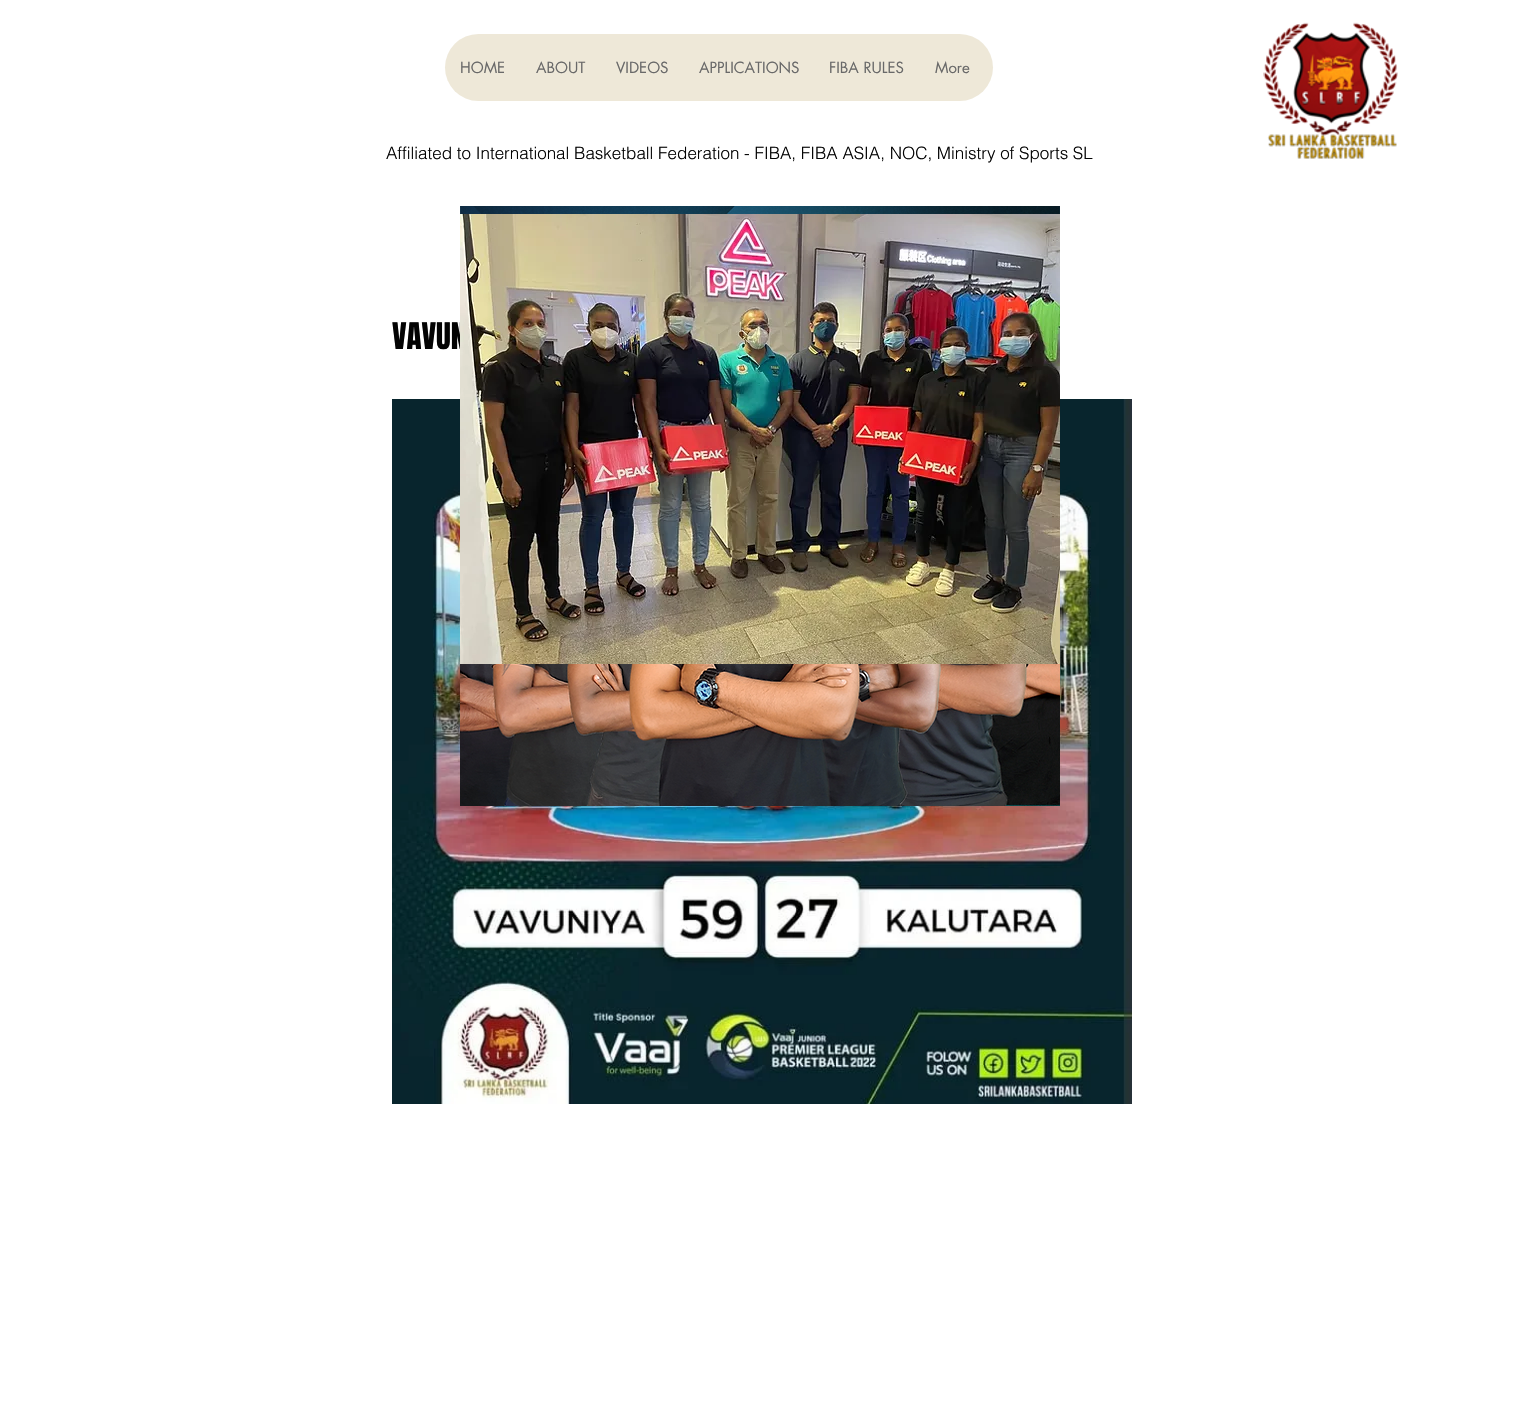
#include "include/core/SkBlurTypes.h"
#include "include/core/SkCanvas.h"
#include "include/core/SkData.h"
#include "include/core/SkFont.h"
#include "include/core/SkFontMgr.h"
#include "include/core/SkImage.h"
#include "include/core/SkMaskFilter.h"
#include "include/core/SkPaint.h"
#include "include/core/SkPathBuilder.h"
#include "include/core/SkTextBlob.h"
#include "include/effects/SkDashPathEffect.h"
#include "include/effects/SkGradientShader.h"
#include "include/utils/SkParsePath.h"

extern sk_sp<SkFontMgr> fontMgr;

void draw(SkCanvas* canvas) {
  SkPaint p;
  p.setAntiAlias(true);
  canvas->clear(SK_ColorWHITE);
  p.setColor(SkColorSetRGB(238, 232, 216));
  canvas->drawRoundRect(SkRect::MakeLTRB(445, 34, 993, 101), 33.5f, 33.5f, p);
  canvas->drawImageRect(SkImages::DeferredFromEncodedData(SkData::MakeFromFileName("images/1.png")), SkRect::MakeLTRB(1263, 22, 1398, 159), SkSamplingOptions());
  canvas->drawImageRect(SkImages::DeferredFromEncodedData(SkData::MakeFromFileName("images/3.png")), SkRect::MakeLTRB(392, 399, 1132, 1104), SkSamplingOptions());
  SkFont font1(fontMgr->matchFamilyStyle("futura", SkFontStyle::Normal()), 15);
  font1.setSubpixel(true);
  p.setColor(SkColorSetRGB(105, 105, 105));
  canvas->drawString("HOME", 460, 73, font1, p);
  canvas->drawString("ABOUT", 536, 73, font1, p);
  canvas->drawString("VIDEOS", 616, 73, font1, p);
  canvas->drawString("APPLICATIONS", 699, 73, font1, p);
  canvas->drawString("FIBA RULES", 829, 73, font1, p);
  canvas->drawString("More", 935, 73, font1, p);
  SkFont font2(fontMgr->matchFamilyStyle("helvetica", SkFontStyle(300, SkFontStyle::kNormal_Width, SkFontStyle::kUpright_Slant)), 17);
  font2.setSubpixel(true);
  p.setColor(SkColorSetRGB(3, 3, 3));
  canvas->drawString("Affiliated to International Basketball Federation - FIBA, FIBA ASIA, NOC, Ministry of Sports SL", 386, 159, font2, p);
  SkFont font3(fontMgr->matchFamilyStyle("Anton", SkFontStyle::Normal()), 31);
  font3.setSubpixel(true);
  canvas->drawString("VAVUN", 392, 349, font3, p);
  canvas->drawImageRect(SkImages::DeferredFromEncodedData(SkData::MakeFromFileName("images/2.png")), SkRect::MakeLTRB(460, 206, 1060, 806), SkSamplingOptions());
  canvas->drawImageRect(SkImages::DeferredFromEncodedData(SkData::MakeFromFileName("images/4.png")), SkRect::MakeLTRB(460, 214, 1060, 664), SkSamplingOptions());
}
